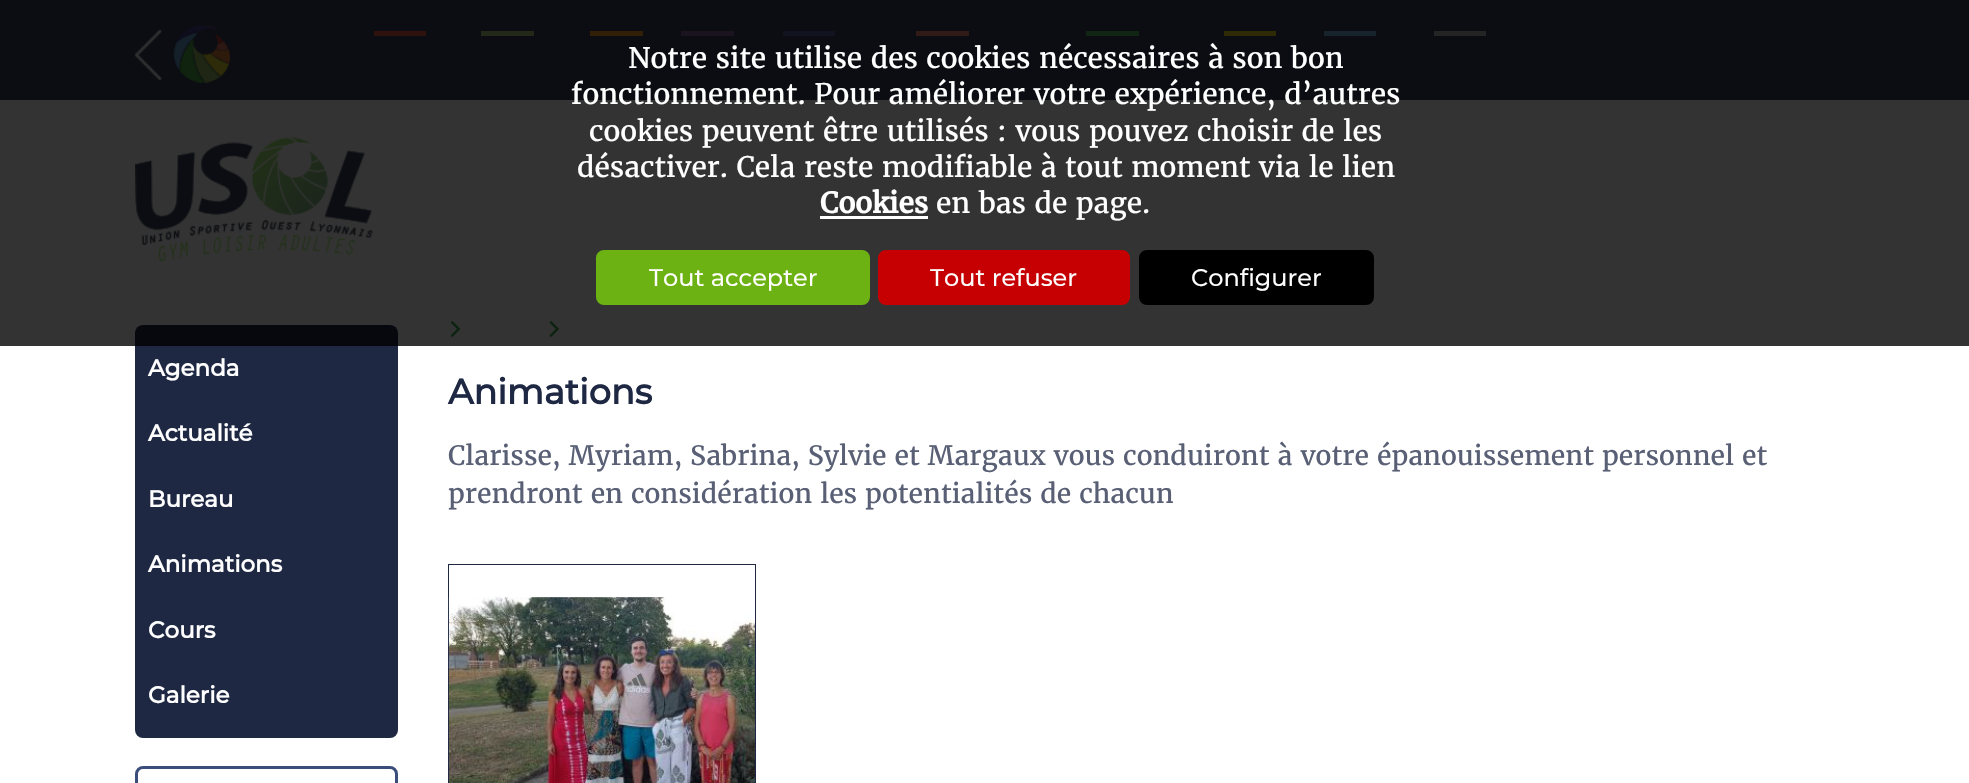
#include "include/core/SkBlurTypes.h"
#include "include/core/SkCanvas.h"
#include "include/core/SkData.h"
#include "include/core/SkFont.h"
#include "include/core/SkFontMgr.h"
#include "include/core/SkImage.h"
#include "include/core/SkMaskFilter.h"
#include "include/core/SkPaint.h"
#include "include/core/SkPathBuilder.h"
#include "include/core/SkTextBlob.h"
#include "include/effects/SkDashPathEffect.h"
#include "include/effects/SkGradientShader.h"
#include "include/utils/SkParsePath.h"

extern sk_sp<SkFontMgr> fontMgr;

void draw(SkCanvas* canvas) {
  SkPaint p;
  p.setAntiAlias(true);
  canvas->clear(SK_ColorWHITE);
  p.setColor(SkColorSetRGB(53, 62, 86));
  canvas->drawRect(SkRect::MakeLTRB(0, 0, 1969, 100), p);
  canvas->drawImageRect(SkImages::DeferredFromEncodedData(SkData::MakeFromFileName("images/1.png")), SkRect::MakeLTRB(135, 25, 230, 83), SkSamplingOptions());
  p.setColor(SkColorSetRGB(232, 84, 62));
  canvas->drawRect(SkRect::MakeLTRB(374, 31, 426, 36), p);
  p.setColor(SkColorSetRGB(167, 204, 121));
  canvas->drawRect(SkRect::MakeLTRB(481, 31, 534, 36), p);
  p.setColor(SkColorSetRGB(242, 159, 34));
  canvas->drawRect(SkRect::MakeLTRB(590, 31, 643, 36), p);
  p.setColor(SkColorSetRGB(133, 96, 159));
  canvas->drawRect(SkRect::MakeLTRB(681, 31, 734, 36), p);
  p.setColor(SkColorSetRGB(87, 92, 159));
  canvas->drawRect(SkRect::MakeLTRB(783, 31, 835, 36), p);
  p.setColor(SkColorSetRGB(242, 135, 112));
  canvas->drawRect(SkRect::MakeLTRB(916, 31, 969, 36), p);
  p.setColor(SkColorSetRGB(83, 182, 102));
  canvas->drawRect(SkRect::MakeLTRB(1086, 31, 1139, 36), p);
  p.setColor(SkColorSetRGB(231, 206, 26));
  canvas->drawRect(SkRect::MakeLTRB(1224, 31, 1276, 36), p);
  p.setColor(SkColorSetRGB(113, 178, 223));
  canvas->drawRect(SkRect::MakeLTRB(1324, 31, 1376, 36), p);
  p.setColor(SkColorSetRGB(179, 179, 179));
  canvas->drawRect(SkRect::MakeLTRB(1434, 31, 1486, 36), p);
  canvas->drawImageRect(SkImages::DeferredFromEncodedData(SkData::MakeFromFileName("images/2.png")), SkRect::MakeLTRB(135, 137, 373, 262), SkSamplingOptions());
  p.setColor(SkColorSetRGB(30, 40, 67));
  canvas->drawRoundRect(SkRect::MakeLTRB(135, 325, 398, 738), 8, 8, p);
  canvas->drawImageRect(SkImages::DeferredFromEncodedData(SkData::MakeFromFileName("images/3.png")), SkRect::MakeLTRB(450, 321, 461, 337), SkSamplingOptions());
  canvas->drawImageRect(SkImages::DeferredFromEncodedData(SkData::MakeFromFileName("images/4.png")), SkRect::MakeLTRB(549, 321, 559, 337), SkSamplingOptions());
  p.setColor(SkColorSetARGB(204, 0, 0, 0));
  canvas->drawRect(SkRect::MakeLTRB(0, 0, 1969, 346), p);
  p.setColor(SK_ColorWHITE);
  canvas->drawRect(SkRect::MakeLTRB(820, 216, 928, 219), p);
  p.setColor(SkColorSetRGB(109, 178, 19));
  canvas->drawRoundRect(SkRect::MakeLTRB(597.5f, 251.5f, 868.5f, 303.5f), 6.5f, 6.5f, p);
  p.setStyle(SkPaint::kStroke_Style);
  p.setStrokeWidth(3);
  canvas->drawRoundRect(SkRect::MakeLTRB(597.5f, 251.5f, 868.5f, 303.5f), 6.5f, 6.5f, p);
  p.setStyle(SkPaint::kFill_Style);
  p.setColor(SkColorSetRGB(198, 0, 2));
  canvas->drawRoundRect(SkRect::MakeLTRB(879.5f, 251.5f, 1128.5f, 303.5f), 6.5f, 6.5f, p);
  p.setStyle(SkPaint::kStroke_Style);
  canvas->drawRoundRect(SkRect::MakeLTRB(879.5f, 251.5f, 1128.5f, 303.5f), 6.5f, 6.5f, p);
  p.setStyle(SkPaint::kFill_Style);
  p.setColor(SK_ColorBLACK);
  canvas->drawRoundRect(SkRect::MakeLTRB(1140.5f, 251.5f, 1372.5f, 303.5f), 6.5f, 6.5f, p);
  p.setStyle(SkPaint::kStroke_Style);
  canvas->drawRoundRect(SkRect::MakeLTRB(1140.5f, 251.5f, 1372.5f, 303.5f), 6.5f, 6.5f, p);
  p.setColor(SkColorSetRGB(59, 77, 122));
  canvas->drawRoundRect(SkRect::MakeLTRB(136.5f, 767.5f, 396.5f, 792.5f), 6.5f, 6.5f, p);
  p.setStrokeWidth(1);
  p.setColor(SkColorSetRGB(30, 40, 67));
  canvas->drawRect(SkRect::MakeLTRB(448.5f, 564.5f, 755.5f, 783.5f), p);
  canvas->drawImageRect(SkImages::DeferredFromEncodedData(SkData::MakeFromFileName("images/5.png")), SkRect::MakeLTRB(448, 597, 755, 783), SkSamplingOptions());
  SkFont font1(fontMgr->matchFamilyStyle("Merriweather", SkFontStyle::Normal()), 28.2f);
  font1.setSubpixel(true);
  p.setStyle(SkPaint::kFill_Style);
  p.setColor(SK_ColorWHITE);
  canvas->drawString("Notre site utilise des cookies nécessaires à son bon", 628, 68, font1, p);
  canvas->drawString("fonctionnement. Pour améliorer votre expérience, d’autres", 571, 104, font1, p);
  canvas->drawString("cookies peuvent être utilisés : vous pouvez choisir de les", 589, 141, font1, p);
  canvas->drawString("désactiver. Cela reste modifiable à tout moment via le lien", 577, 177, font1, p);
  SkFont font2(fontMgr->matchFamilyStyle("Merriweather", SkFontStyle::Bold()), 28.2f);
  font2.setSubpixel(true);
  canvas->drawString("Cookies", 820, 213, font2, p);
  canvas->drawString("en bas de page.", 936, 213, font1, p);
  SkFont font3(fontMgr->matchFamilyStyle("Montserrat", SkFontStyle::Normal()), 24);
  font3.setSubpixel(true);
  canvas->drawString("Tout accepter", 649, 286, font3, p);
  canvas->drawString("Tout refuser", 930, 286, font3, p);
  canvas->drawString("Configurer", 1191, 286, font3, p);
  SkFont font4(fontMgr->matchFamilyStyle("Montserrat", SkFontStyle::Bold()), 23);
  font4.setSubpixel(true);
  canvas->drawString("Agenda", 148, 376, font4, p);
  canvas->drawString("Actualité", 148, 441, font4, p);
  canvas->drawString("Bureau", 148, 507, font4, p);
  canvas->drawString("Animations", 148, 572, font4, p);
  canvas->drawString("Cours", 148, 638, font4, p);
  canvas->drawString("Galerie", 148, 703, font4, p);
  SkFont font5(fontMgr->matchFamilyStyle("Montserrat", SkFontStyle::Bold()), 35);
  font5.setSubpixel(true);
  p.setColor(SkColorSetRGB(30, 40, 67));
  canvas->drawString("Animations", 448, 404, font5, p);
  SkFont font6(fontMgr->matchFamilyStyle("Merriweather", SkFontStyle::Normal()), 26.6f);
  font6.setSubpixel(true);
  p.setColor(SkColorSetRGB(89, 96, 117));
  canvas->drawString("Clarisse, Myriam, Sabrina, Sylvie et Margaux vous conduiront à votre épanouissement personnel et", 448, 465, font6, p);
  canvas->drawString("prendront en considération les potentialités de chacun", 448, 503, font6, p);
}
